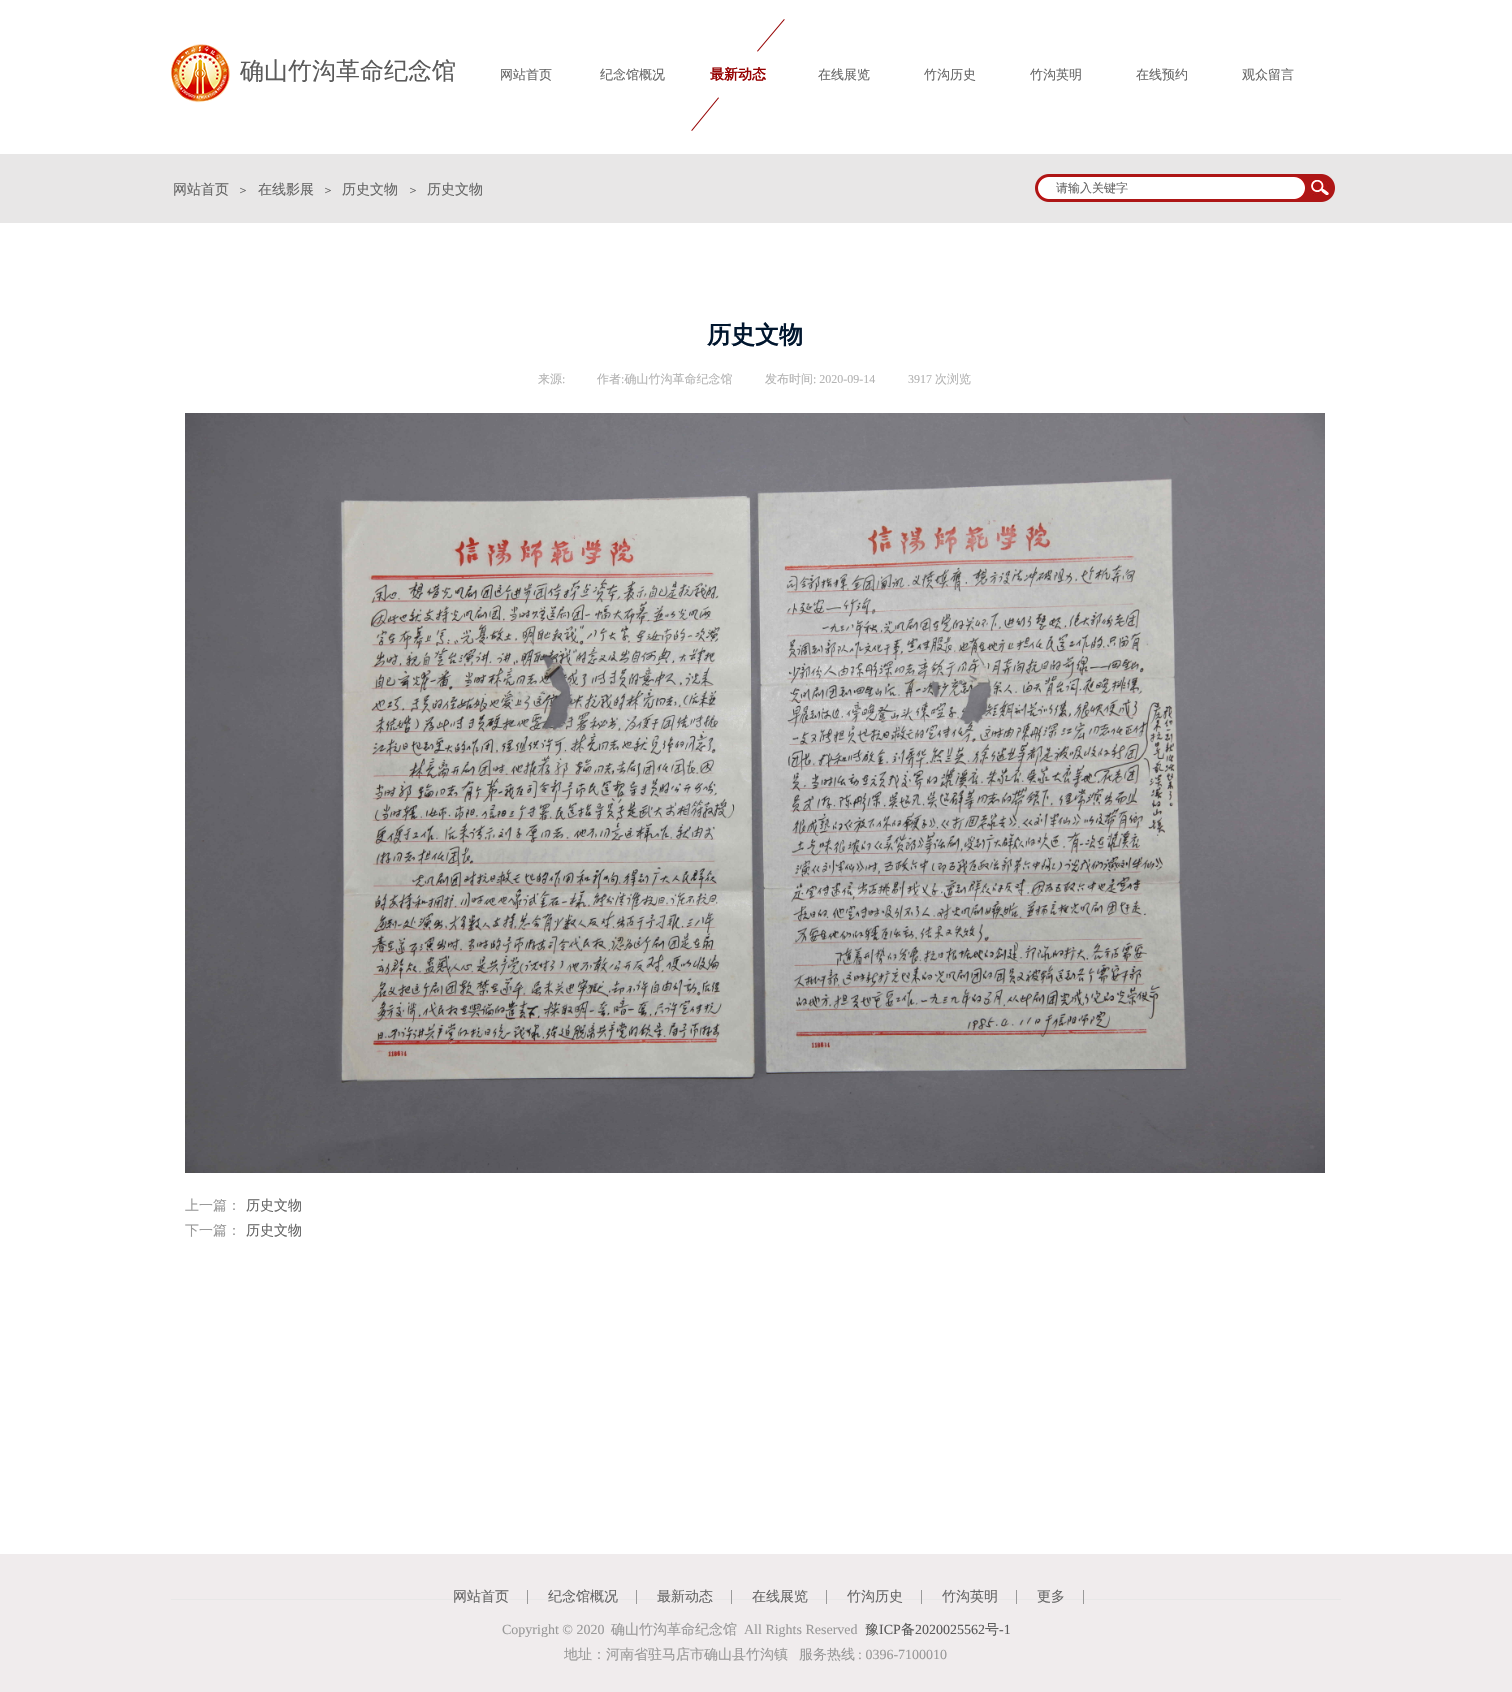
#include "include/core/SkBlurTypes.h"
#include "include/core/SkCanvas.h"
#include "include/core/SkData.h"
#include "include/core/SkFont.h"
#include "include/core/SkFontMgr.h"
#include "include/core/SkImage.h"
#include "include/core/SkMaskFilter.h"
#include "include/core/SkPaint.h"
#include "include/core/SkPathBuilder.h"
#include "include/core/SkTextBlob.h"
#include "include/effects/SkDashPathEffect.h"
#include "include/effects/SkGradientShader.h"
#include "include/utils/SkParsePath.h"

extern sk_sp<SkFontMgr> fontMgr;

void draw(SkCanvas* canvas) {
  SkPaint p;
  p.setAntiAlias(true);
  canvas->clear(SK_ColorWHITE);
  canvas->drawImageRect(SkImages::DeferredFromEncodedData(SkData::MakeFromFileName("images/1.png")), SkRect::MakeLTRB(171, 44, 230, 103), SkSamplingOptions());
  canvas->drawImageRect(SkImages::DeferredFromEncodedData(SkData::MakeFromFileName("images/2.png")), SkRect::MakeLTRB(691, 19, 785, 131), SkSamplingOptions());
  p.setColor(SkColorSetRGB(232, 231, 231));
  canvas->drawRect(SkRect::MakeLTRB(0, 154, 1512, 223), p);
  canvas->drawImageRect(SkImages::DeferredFromEncodedData(SkData::MakeFromFileName("images/3.png")), SkRect::MakeLTRB(1035, 174, 1335, 202), SkSamplingOptions());
  canvas->drawImageRect(SkImages::DeferredFromEncodedData(SkData::MakeFromFileName("images/4.png")), SkRect::MakeLTRB(185, 413, 1325, 1173), SkSamplingOptions());
  p.setColor(SkColorSetRGB(240, 236, 237));
  canvas->drawRect(SkRect::MakeLTRB(0, 1554, 1512, 1692), p);
  p.setColor(SkColorSetRGB(232, 232, 232));
  canvas->drawRect(SkRect::MakeLTRB(171, 1599, 1341, 1600), p);
  p.setColor(SkColorSetRGB(153, 153, 153));
  canvas->drawRect(SkRect::MakeLTRB(527, 1590, 528, 1604), p);
  canvas->drawRect(SkRect::MakeLTRB(636, 1590, 637, 1604), p);
  canvas->drawRect(SkRect::MakeLTRB(731, 1590, 732, 1604), p);
  canvas->drawRect(SkRect::MakeLTRB(826, 1590, 827, 1604), p);
  canvas->drawRect(SkRect::MakeLTRB(921, 1590, 922, 1604), p);
  canvas->drawRect(SkRect::MakeLTRB(1016, 1590, 1017, 1604), p);
  canvas->drawRect(SkRect::MakeLTRB(1083, 1590, 1084, 1604), p);
  SkFont font1(fontMgr->matchFamilyStyle("WenQuanYi Zen Hei", SkFontStyle(500, SkFontStyle::kNormal_Width, SkFontStyle::kUpright_Slant)), 24);
  font1.setSubpixel(true);
  p.setColor(SkColorSetRGB(90, 90, 90));
  canvas->drawString("确山竹沟革命纪念馆", 240, 79, font1, p);
  SkFont font2(fontMgr->matchFamilyStyle("WenQuanYi Zen Hei", SkFontStyle(500, SkFontStyle::kNormal_Width, SkFontStyle::kUpright_Slant)), 13);
  font2.setSubpixel(true);
  p.setColor(SkColorSetRGB(102, 102, 102));
  canvas->drawString("网站首页", 500, 79, font2, p);
  canvas->drawString("纪念馆概况", 600, 79, font2, p);
  SkFont font3(fontMgr->matchFamilyStyle("WenQuanYi Zen Hei", SkFontStyle::Bold()), 14);
  font3.setSubpixel(true);
  p.setColor(SkColorSetRGB(150, 2, 2));
  canvas->drawString("最新动态", 710, 79, font3, p);
  p.setColor(SkColorSetRGB(102, 102, 102));
  canvas->drawString("在线展览", 818, 79, font2, p);
  canvas->drawString("竹沟历史", 924, 79, font2, p);
  canvas->drawString("竹沟英明", 1030, 79, font2, p);
  canvas->drawString("在线预约", 1136, 79, font2, p);
  canvas->drawString("观众留言", 1242, 79, font2, p);
  SkFont font4(fontMgr->matchFamilyStyle("WenQuanYi Zen Hei", SkFontStyle(500, SkFontStyle::kNormal_Width, SkFontStyle::kUpright_Slant)), 14);
  font4.setSubpixel(true);
  canvas->drawString("网站首页", 173, 194, font4, p);
  SkFont font5(fontMgr->matchFamilyStyle("WenQuanYi Zen Hei", SkFontStyle(500, SkFontStyle::kNormal_Width, SkFontStyle::kUpright_Slant)), 12);
  font5.setSubpixel(true);
  canvas->drawString("＞", 237, 194, font5, p);
  canvas->drawString("在线影展", 258, 194, font4, p);
  canvas->drawString("＞", 322, 194, font5, p);
  canvas->drawString("历史文物", 342, 194, font4, p);
  canvas->drawString("＞", 407, 194, font5, p);
  canvas->drawString("历史文物", 427, 194, font4, p);
  canvas->drawString("请输入关键字", 1056, 192, font5, p);
  SkFont font6(fontMgr->matchFamilyStyle("WenQuanYi Zen Hei", SkFontStyle::Bold()), 24);
  font6.setSubpixel(true);
  p.setColor(SkColorSetRGB(1, 22, 46));
  canvas->drawString("历史文物", 707, 343, font6, p);
  p.setColor(SkColorSetRGB(179, 179, 179));
  canvas->drawString("来源", 538, 383, font5, p);
  SkFont font7(fontMgr->matchFamilyStyle("Liberation Serif", SkFontStyle::Normal()), 12);
  font7.setSubpixel(true);
  canvas->drawString(":", 562, 383, font7, p);
  canvas->drawString("作者 确山竹沟革命纪念馆", 597, 383, font5, p);
  canvas->drawString(":", 621, 383, font7, p);
  canvas->drawString("发布时间", 765, 383, font5, p);
  canvas->drawString(": 2020-09-14", 813, 383, font7, p);
  canvas->drawString("3917", 908, 383, font7, p);
  canvas->drawString("次浏览", 935, 383, font5, p);
  p.setColor(SkColorSetRGB(153, 153, 153));
  canvas->drawString("上一篇：", 185, 1210, font4, p);
  p.setColor(SkColorSetRGB(102, 102, 102));
  canvas->drawString("历史文物", 246, 1210, font4, p);
  p.setColor(SkColorSetRGB(153, 153, 153));
  canvas->drawString("下一篇：", 185, 1235, font4, p);
  p.setColor(SkColorSetRGB(102, 102, 102));
  canvas->drawString("历史文物", 246, 1235, font4, p);
  canvas->drawString("网站首页", 453, 1601, font4, p);
  canvas->drawString("纪念馆概况", 548, 1601, font4, p);
  canvas->drawString("最新动态", 657, 1601, font4, p);
  canvas->drawString("在线展览", 752, 1601, font4, p);
  canvas->drawString("竹沟历史", 847, 1601, font4, p);
  canvas->drawString("竹沟英明", 942, 1601, font4, p);
  canvas->drawString("更多", 1037, 1601, font4, p);
  SkFont font8(fontMgr->matchFamilyStyle("Liberation Serif", SkFontStyle::Normal()), 14);
  font8.setSubpixel(true);
  p.setColor(SkColorSetRGB(153, 153, 153));
  canvas->drawString("Copyright © 2020", 502, 1634, font8, p);
  canvas->drawString("确山竹沟革命纪念馆", 611, 1634, font4, p);
  canvas->drawString("All Rights Reserved", 744, 1634, font8, p);
  p.setColor(SkColorSetRGB(90, 90, 90));
  canvas->drawString("豫", 865, 1634, font4, p);
  canvas->drawString("ICP", 879, 1634, font8, p);
  canvas->drawString("备", 901, 1634, font4, p);
  canvas->drawString("2020025562", 915, 1634, font8, p);
  canvas->drawString("号", 985, 1634, font4, p);
  canvas->drawString("-1", 999, 1634, font8, p);
  p.setColor(SkColorSetRGB(153, 153, 153));
  canvas->drawString("地址：河南省驻马店市确山县竹沟镇", 564, 1659, font4, p);
  canvas->drawString("服务热线", 799, 1659, font4, p);
  canvas->drawString(": 0396-7100010", 858, 1659, font8, p);
}
